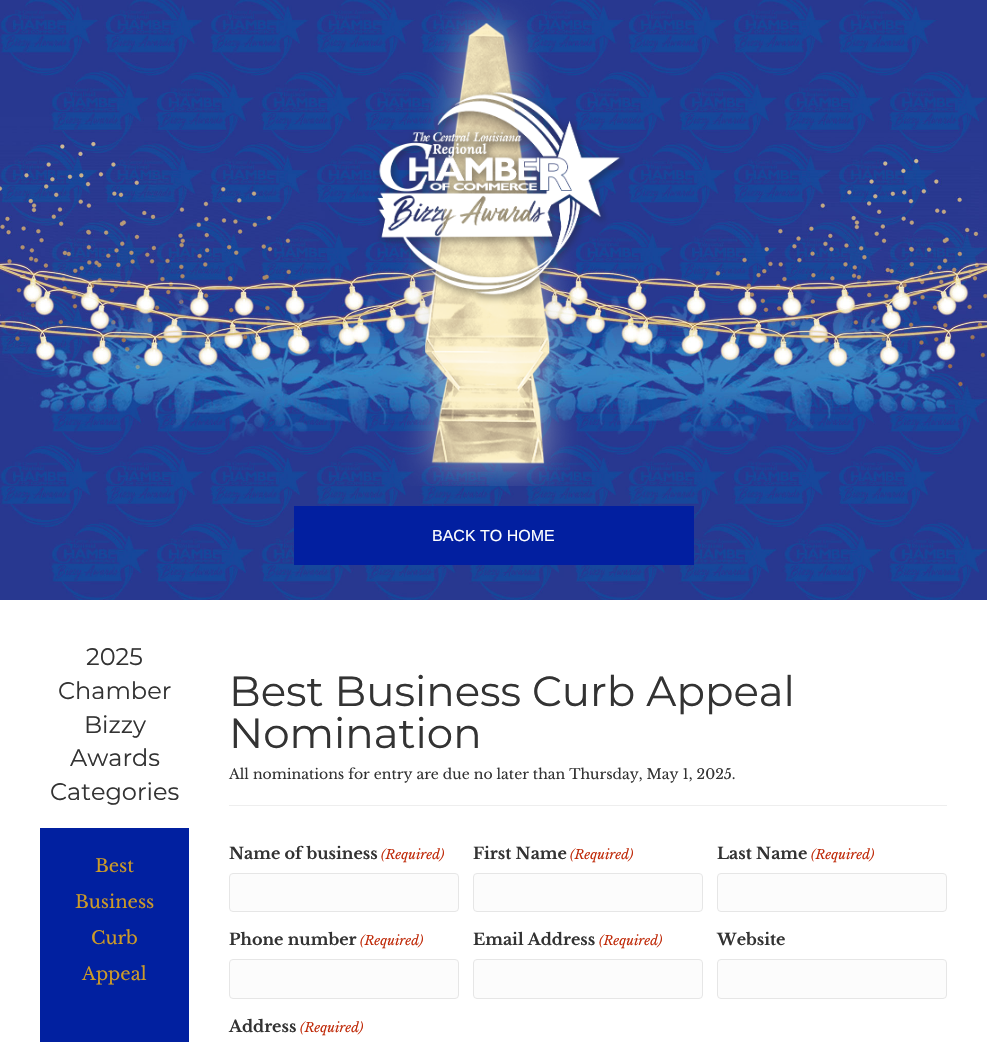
#include "include/core/SkBlurTypes.h"
#include "include/core/SkCanvas.h"
#include "include/core/SkData.h"
#include "include/core/SkFont.h"
#include "include/core/SkFontMgr.h"
#include "include/core/SkImage.h"
#include "include/core/SkMaskFilter.h"
#include "include/core/SkPaint.h"
#include "include/core/SkPathBuilder.h"
#include "include/core/SkTextBlob.h"
#include "include/effects/SkDashPathEffect.h"
#include "include/effects/SkGradientShader.h"
#include "include/utils/SkParsePath.h"

extern sk_sp<SkFontMgr> fontMgr;

void draw(SkCanvas* canvas) {
  SkPaint p;
  p.setAntiAlias(true);
  canvas->clear(SK_ColorWHITE);
  canvas->drawImageRect(SkImages::DeferredFromEncodedData(SkData::MakeFromFileName("images/1.png")), SkRect::MakeLTRB(0, 0, 987, 600), SkSamplingOptions());
  canvas->drawImageRect(SkImages::DeferredFromEncodedData(SkData::MakeFromFileName("images/2.png")), SkRect::MakeLTRB(375, 0, 625, 486), SkSamplingOptions());
  p.setColor(SkColorSetRGB(2, 31, 160));
  canvas->drawRect(SkRect::MakeLTRB(294, 506, 694, 565), p);
  p.setColor(SkColorSetRGB(1, 32, 160));
  canvas->drawRect(SkRect::MakeLTRB(40, 828, 189, 1042), p);
  p.setColor(SkColorSetRGB(238, 238, 238));
  canvas->drawRect(SkRect::MakeLTRB(229, 805, 947, 806), p);
  p.setColor(SkColorSetRGB(252, 252, 252));
  canvas->drawRoundRect(SkRect::MakeLTRB(229.5f, 873.5f, 458.5f, 911.5f), 3.5f, 3.5f, p);
  p.setStyle(SkPaint::kStroke_Style);
  p.setStrokeWidth(1);
  p.setColor(SkColorSetRGB(230, 230, 230));
  canvas->drawRoundRect(SkRect::MakeLTRB(229.5f, 873.5f, 458.5f, 911.5f), 3.5f, 3.5f, p);
  p.setStyle(SkPaint::kFill_Style);
  p.setColor(SkColorSetRGB(252, 252, 252));
  canvas->drawRoundRect(SkRect::MakeLTRB(473.5f, 873.5f, 702.5f, 911.5f), 3.5f, 3.5f, p);
  p.setStyle(SkPaint::kStroke_Style);
  p.setColor(SkColorSetRGB(230, 230, 230));
  canvas->drawRoundRect(SkRect::MakeLTRB(473.5f, 873.5f, 702.5f, 911.5f), 3.5f, 3.5f, p);
  p.setStyle(SkPaint::kFill_Style);
  p.setColor(SkColorSetRGB(252, 252, 252));
  canvas->drawRoundRect(SkRect::MakeLTRB(717.5f, 873.5f, 946.5f, 911.5f), 3.5f, 3.5f, p);
  p.setStyle(SkPaint::kStroke_Style);
  p.setColor(SkColorSetRGB(230, 230, 230));
  canvas->drawRoundRect(SkRect::MakeLTRB(717.5f, 873.5f, 946.5f, 911.5f), 3.5f, 3.5f, p);
  p.setStyle(SkPaint::kFill_Style);
  p.setColor(SkColorSetRGB(252, 252, 252));
  canvas->drawRoundRect(SkRect::MakeLTRB(229.5f, 959.5f, 458.5f, 998.5f), 3.5f, 3.5f, p);
  p.setStyle(SkPaint::kStroke_Style);
  p.setColor(SkColorSetRGB(230, 230, 230));
  canvas->drawRoundRect(SkRect::MakeLTRB(229.5f, 959.5f, 458.5f, 998.5f), 3.5f, 3.5f, p);
  p.setStyle(SkPaint::kFill_Style);
  p.setColor(SkColorSetRGB(252, 252, 252));
  canvas->drawRoundRect(SkRect::MakeLTRB(473.5f, 959.5f, 702.5f, 998.5f), 3.5f, 3.5f, p);
  p.setStyle(SkPaint::kStroke_Style);
  p.setColor(SkColorSetRGB(230, 230, 230));
  canvas->drawRoundRect(SkRect::MakeLTRB(473.5f, 959.5f, 702.5f, 998.5f), 3.5f, 3.5f, p);
  p.setStyle(SkPaint::kFill_Style);
  p.setColor(SkColorSetRGB(252, 252, 252));
  canvas->drawRoundRect(SkRect::MakeLTRB(717.5f, 959.5f, 946.5f, 998.5f), 3.5f, 3.5f, p);
  p.setStyle(SkPaint::kStroke_Style);
  p.setColor(SkColorSetRGB(230, 230, 230));
  canvas->drawRoundRect(SkRect::MakeLTRB(717.5f, 959.5f, 946.5f, 998.5f), 3.5f, 3.5f, p);
  SkFont font1(fontMgr->matchFamilyStyle("Liberation Sans", SkFontStyle::Normal()), 16);
  font1.setSubpixel(true);
  p.setStyle(SkPaint::kFill_Style);
  p.setColor(SK_ColorWHITE);
  canvas->drawString("BACK TO HOME", 432, 541, font1, p);
  SkFont font2(fontMgr->matchFamilyStyle("Montserrat", SkFontStyle::Normal()), 24);
  font2.setSubpixel(true);
  p.setColor(SkColorSetRGB(51, 51, 51));
  canvas->drawString("2025", 86, 665, font2, p);
  canvas->drawString("Chamber", 58, 699, font2, p);
  canvas->drawString("Bizzy", 84, 733, font2, p);
  canvas->drawString("Awards", 70, 766, font2, p);
  canvas->drawString("Categories", 50, 800, font2, p);
  SkFont font3(fontMgr->matchFamilyStyle("Libre Baskerville", SkFontStyle::Normal()), 18);
  font3.setSubpixel(true);
  p.setColor(SkColorSetRGB(204, 154, 40));
  canvas->drawString("Best", 95, 872, font3, p);
  canvas->drawString("Business", 75, 908, font3, p);
  canvas->drawString("Curb", 91, 944, font3, p);
  canvas->drawString("Appeal", 82, 980, font3, p);
  SkFont font4(fontMgr->matchFamilyStyle("Montserrat", SkFontStyle::Normal()), 42);
  font4.setSubpixel(true);
  p.setColor(SkColorSetRGB(51, 51, 51));
  canvas->drawString("Best Business Curb Appeal", 229, 706, font4, p);
  canvas->drawString("Nomination", 229, 748, font4, p);
  SkFont font5(fontMgr->matchFamilyStyle("Libre Baskerville", SkFontStyle::Normal()), 14);
  font5.setSubpixel(true);
  canvas->drawString("All nominations for entry are due no later than Thursday, May 1, 2025.", 229, 779, font5, p);
  SkFont font6(fontMgr->matchFamilyStyle("Libre Baskerville", SkFontStyle::Bold()), 16);
  font6.setSubpixel(true);
  canvas->drawString("Name of business", 229, 859, font6, p);
  SkFont font7(fontMgr->matchFamilyStyle("Libre Baskerville", SkFontStyle::Italic()), 13);
  font7.setSubpixel(true);
  p.setColor(SkColorSetRGB(192, 43, 10));
  canvas->drawString("(Required)", 381, 859, font7, p);
  p.setColor(SkColorSetRGB(51, 51, 51));
  canvas->drawString("First Name", 473, 859, font6, p);
  p.setColor(SkColorSetRGB(192, 43, 10));
  canvas->drawString("(Required)", 570, 859, font7, p);
  p.setColor(SkColorSetRGB(51, 51, 51));
  canvas->drawString("Last Name", 717, 859, font6, p);
  p.setColor(SkColorSetRGB(192, 43, 10));
  canvas->drawString("(Required)", 811, 859, font7, p);
  p.setColor(SkColorSetRGB(51, 51, 51));
  canvas->drawString("Phone number", 229, 945, font6, p);
  p.setColor(SkColorSetRGB(192, 43, 10));
  canvas->drawString("(Required)", 360, 945, font7, p);
  p.setColor(SkColorSetRGB(51, 51, 51));
  canvas->drawString("Email Address", 473, 945, font6, p);
  p.setColor(SkColorSetRGB(192, 43, 10));
  canvas->drawString("(Required)", 599, 945, font7, p);
  p.setColor(SkColorSetRGB(51, 51, 51));
  canvas->drawString("Website", 717, 945, font6, p);
  canvas->drawString("Address", 229, 1032, font6, p);
  p.setColor(SkColorSetRGB(192, 43, 10));
  canvas->drawString("(Required)", 300, 1032, font7, p);
}
